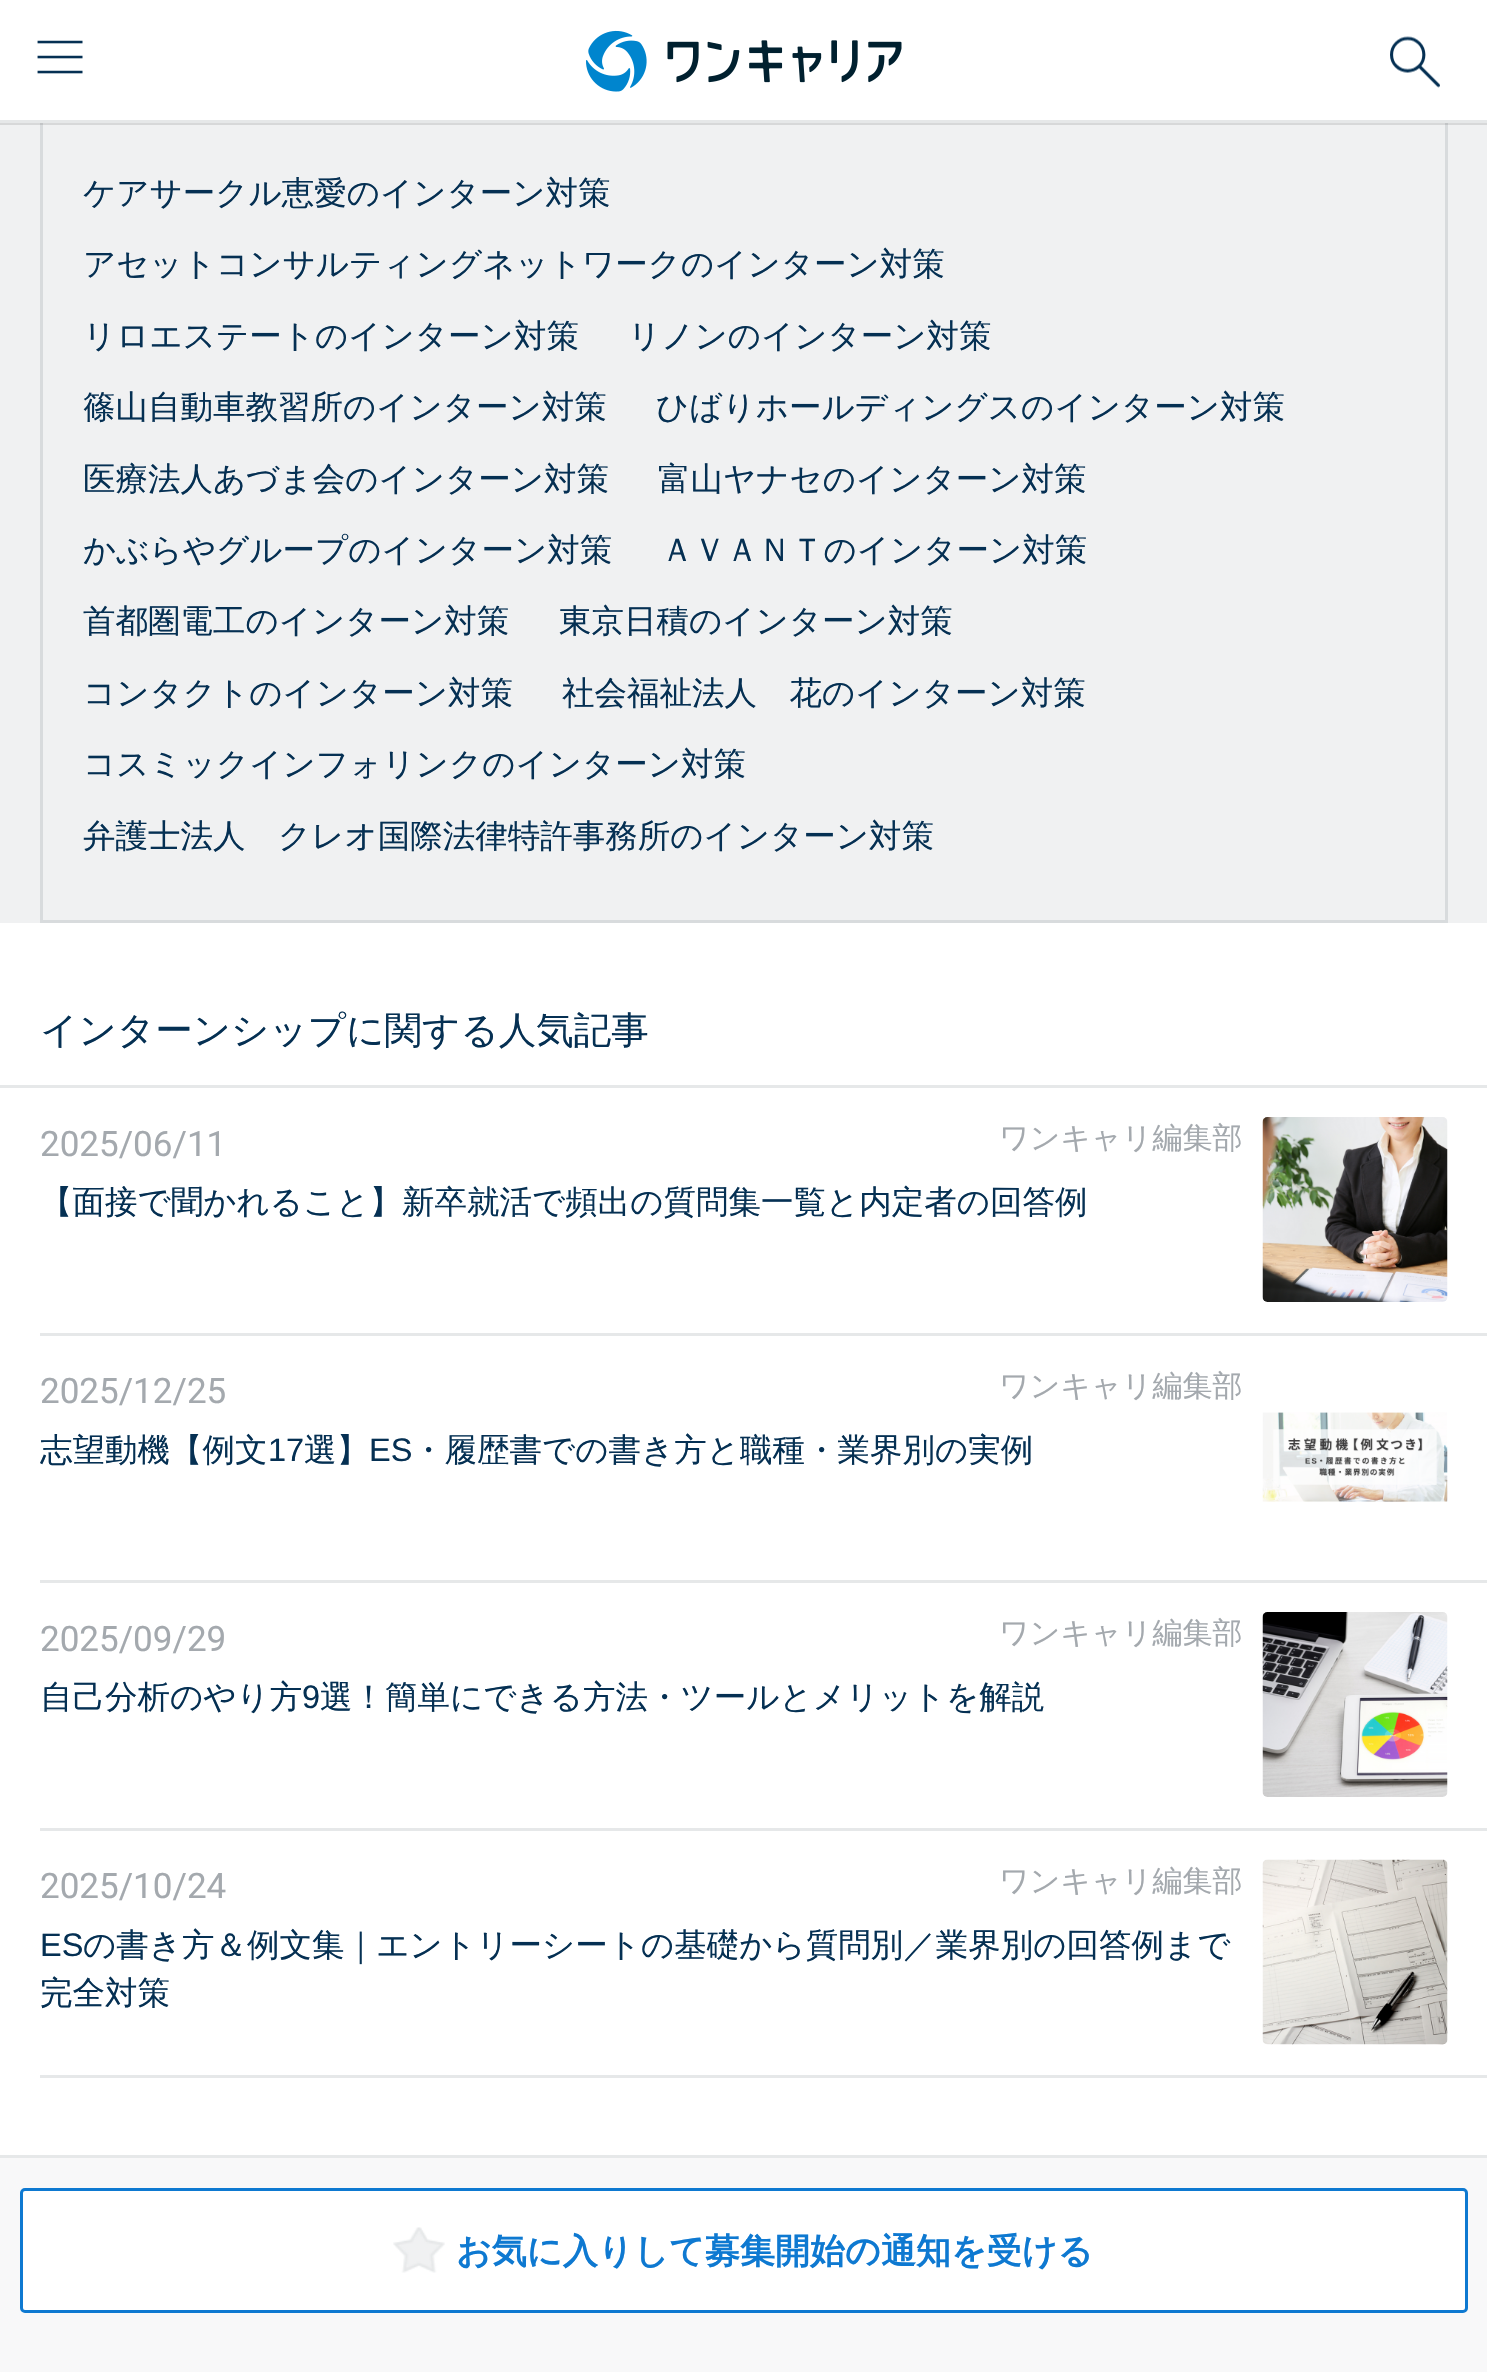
#include "include/core/SkBlurTypes.h"
#include "include/core/SkCanvas.h"
#include "include/core/SkData.h"
#include "include/core/SkFont.h"
#include "include/core/SkFontMgr.h"
#include "include/core/SkImage.h"
#include "include/core/SkMaskFilter.h"
#include "include/core/SkPaint.h"
#include "include/core/SkPathBuilder.h"
#include "include/core/SkTextBlob.h"
#include "include/effects/SkDashPathEffect.h"
#include "include/effects/SkGradientShader.h"
#include "include/utils/SkParsePath.h"

extern sk_sp<SkFontMgr> fontMgr;

void draw(SkCanvas* canvas) {
  SkPaint p;
  p.setAntiAlias(true);
  canvas->clear(SK_ColorWHITE);
  p.setColor(SkColorSetRGB(240, 241, 242));
  canvas->drawRect(SkRect::MakeLTRB(0, 123, 1487, 923), p);
  p.setStyle(SkPaint::kStroke_Style);
  p.setStrokeWidth(3);
  p.setColor(SkColorSetRGB(216, 219, 221));
  canvas->drawRect(SkRect::MakeLTRB(41.5f, -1.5f, 1446.5f, 921.5f), p);
  p.setStyle(SkPaint::kFill_Style);
  p.setColor(SkColorSetARGB(26, 0, 0, 0));
  canvas->drawPath(SkPathBuilder().moveTo(0, 122).lineTo(0, 125).lineTo(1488, 125).lineTo(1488, 3).lineTo(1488, 122).close().detach(), p);
  p.setColor(SK_ColorWHITE);
  canvas->drawRect(SkRect::MakeLTRB(40, 0, 1448, 120), p);
  p.setColor(SkColorSetRGB(230, 232, 233));
  canvas->drawRect(SkRect::MakeLTRB(0, 120, 1487, 123), p);
  canvas->drawImageRect(SkImages::DeferredFromEncodedData(SkData::MakeFromFileName("images/1.png")), SkRect::MakeLTRB(37, 40, 83, 74), SkSamplingOptions());
  canvas->drawImageRect(SkImages::DeferredFromEncodedData(SkData::MakeFromFileName("images/2.png")), SkRect::MakeLTRB(586, 30, 902, 92), SkSamplingOptions());
  canvas->drawImageRect(SkImages::DeferredFromEncodedData(SkData::MakeFromFileName("images/3.png")), SkRect::MakeLTRB(1390, 36, 1440, 88), SkSamplingOptions());
  canvas->drawRect(SkRect::MakeLTRB(0, 1085, 1487, 1088), p);
  canvas->drawRect(SkRect::MakeLTRB(40, 1333, 1487, 1336), p);
  canvas->drawImageRect(SkImages::DeferredFromEncodedData(SkData::MakeFromFileName("images/4.png")), SkRect::MakeLTRB(1262, 1117, 1448, 1302), SkSamplingOptions());
  canvas->drawRect(SkRect::MakeLTRB(40, 1580, 1487, 1583), p);
  canvas->drawImageRect(SkImages::DeferredFromEncodedData(SkData::MakeFromFileName("images/5.png")), SkRect::MakeLTRB(1262, 1412, 1448, 1502), SkSamplingOptions());
  canvas->drawRect(SkRect::MakeLTRB(40, 1828, 1487, 1831), p);
  canvas->drawImageRect(SkImages::DeferredFromEncodedData(SkData::MakeFromFileName("images/6.png")), SkRect::MakeLTRB(1262, 1612, 1448, 1797), SkSamplingOptions());
  canvas->drawRect(SkRect::MakeLTRB(40, 2075, 1487, 2078), p);
  canvas->drawImageRect(SkImages::DeferredFromEncodedData(SkData::MakeFromFileName("images/7.png")), SkRect::MakeLTRB(1262, 1859, 1448, 2045), SkSamplingOptions());
  p.setColor(SkColorSetRGB(248, 248, 249));
  canvas->drawRect(SkRect::MakeLTRB(0, 2158, 1487, 2372), p);
  p.setColor(SkColorSetRGB(230, 232, 233));
  canvas->drawRect(SkRect::MakeLTRB(0, 2155, 1487, 2158), p);
  p.setColor(SK_ColorWHITE);
  canvas->drawRoundRect(SkRect::MakeLTRB(21.5f, 2189.5f, 1466.5f, 2311.5f), 3.5f, 3.5f, p);
  p.setStyle(SkPaint::kStroke_Style);
  p.setColor(SkColorSetRGB(14, 121, 209));
  canvas->drawRoundRect(SkRect::MakeLTRB(21.5f, 2189.5f, 1466.5f, 2311.5f), 3.5f, 3.5f, p);
  canvas->drawImageRect(SkImages::DeferredFromEncodedData(SkData::MakeFromFileName("images/8.png")), SkRect::MakeLTRB(393, 2227, 445, 2273), SkSamplingOptions());
  SkFont font1(fontMgr->matchFamilyStyle("WenQuanYi Zen Hei", SkFontStyle(500, SkFontStyle::kNormal_Width, SkFontStyle::kUpright_Slant)), 32.5f);
  font1.setSubpixel(true);
  p.setStyle(SkPaint::kFill_Style);
  p.setColor(SkColorSetRGB(5, 48, 83));
  canvas->drawString("ケアサークル恵愛のインターン対策", 83, 204, font1, p);
  canvas->drawString("アセットコンサルティングネットワークのインターン対策", 83, 275, font1, p);
  canvas->drawString("リロエステートのインターン対策", 83, 347, font1, p);
  canvas->drawString("リノンのインターン対策", 628, 347, font1, p);
  canvas->drawString("篠山自動車教習所のインターン対策", 83, 418, font1, p);
  canvas->drawString("ひばりホールディングスのインターン対策", 656, 418, font1, p);
  canvas->drawString("医療法人あづま会のインターン対策", 83, 490, font1, p);
  canvas->drawString("富山ヤナセのインターン対策", 658, 490, font1, p);
  canvas->drawString("かぶらやグループのインターン対策", 83, 561, font1, p);
  canvas->drawString("ＡＶＡＮＴのインターン対策", 661, 561, font1, p);
  canvas->drawString("首都圏電工のインターン対策", 83, 632, font1, p);
  canvas->drawString("東京日積のインターン対策", 559, 632, font1, p);
  canvas->drawString("コンタクトのインターン対策", 83, 704, font1, p);
  canvas->drawString("社会福祉法人　花のインターン対策", 562, 704, font1, p);
  canvas->drawString("コスミックインフォリンクのインターン対策", 83, 775, font1, p);
  canvas->drawString("弁護士法人　クレオ国際法律特許事務所のインターン対策", 83, 847, font1, p);
  SkFont font2(fontMgr->matchFamilyStyle("WenQuanYi Zen Hei", SkFontStyle(500, SkFontStyle::kNormal_Width, SkFontStyle::kUpright_Slant)), 37.5f);
  font2.setSubpixel(true);
  canvas->drawString("インターンシップに関する人気記事", 40, 1043, font2, p);
  SkFont font3(fontMgr->matchFamilyStyle("Roboto", SkFontStyle::Normal()), 35);
  font3.setSubpixel(true);
  p.setColor(SkColorSetRGB(164, 169, 174));
  canvas->drawString("2025/06/11", 40, 1156, font3, p);
  SkFont font4(fontMgr->matchFamilyStyle("WenQuanYi Zen Hei", SkFontStyle(500, SkFontStyle::kNormal_Width, SkFontStyle::kUpright_Slant)), 30);
  font4.setSubpixel(true);
  canvas->drawString("ワンキャリ編集部", 999, 1148, font4, p);
  p.setColor(SkColorSetRGB(5, 48, 83));
  canvas->drawString("【面接で聞かれること】新卒就活で頻出の質問集一覧と内定者の回答例", 40, 1213, font1, p);
  p.setColor(SkColorSetRGB(164, 169, 174));
  canvas->drawString("2025/12/25", 40, 1403, font3, p);
  canvas->drawString("ワンキャリ編集部", 999, 1396, font4, p);
  p.setColor(SkColorSetRGB(5, 48, 83));
  canvas->drawString("志望動機【例文", 40, 1461, font1, p);
  SkFont font5(fontMgr->matchFamilyStyle("Liberation Sans", SkFontStyle::Normal()), 32.5f);
  font5.setSubpixel(true);
  canvas->drawString("17", 268, 1461, font5, p);
  canvas->drawString("選】", 304, 1461, font1, p);
  canvas->drawString("ES", 369, 1461, font5, p);
  canvas->drawString("・履歴書での書き方と職種・業界別の実例", 412, 1461, font1, p);
  p.setColor(SkColorSetRGB(164, 169, 174));
  canvas->drawString("2025/09/29", 40, 1651, font3, p);
  canvas->drawString("ワンキャリ編集部", 999, 1643, font4, p);
  p.setColor(SkColorSetRGB(5, 48, 83));
  canvas->drawString("自己分析のやり方", 40, 1708, font1, p);
  canvas->drawString("9", 302, 1708, font5, p);
  canvas->drawString("選！簡単にできる方法・ツールとメリットを解説", 320, 1708, font1, p);
  p.setColor(SkColorSetRGB(164, 169, 174));
  canvas->drawString("2025/10/24", 40, 1898, font3, p);
  canvas->drawString("ワンキャリ編集部", 999, 1891, font4, p);
  p.setColor(SkColorSetRGB(5, 48, 83));
  canvas->drawString("ES", 40, 1956, font5, p);
  canvas->drawString("の書き方＆例文集｜エントリーシートの基礎から質問別／業界別の回答例まで", 83, 1956, font1, p);
  canvas->drawString("完全対策", 40, 2004, font1, p);
  SkFont font6(fontMgr->matchFamilyStyle("WenQuanYi Zen Hei", SkFontStyle::Bold()), 35);
  font6.setSubpixel(true);
  p.setColor(SkColorSetRGB(14, 121, 209));
  canvas->drawString("お気に入りして募集開始の通知を受ける", 456, 2263, font6, p);
}
